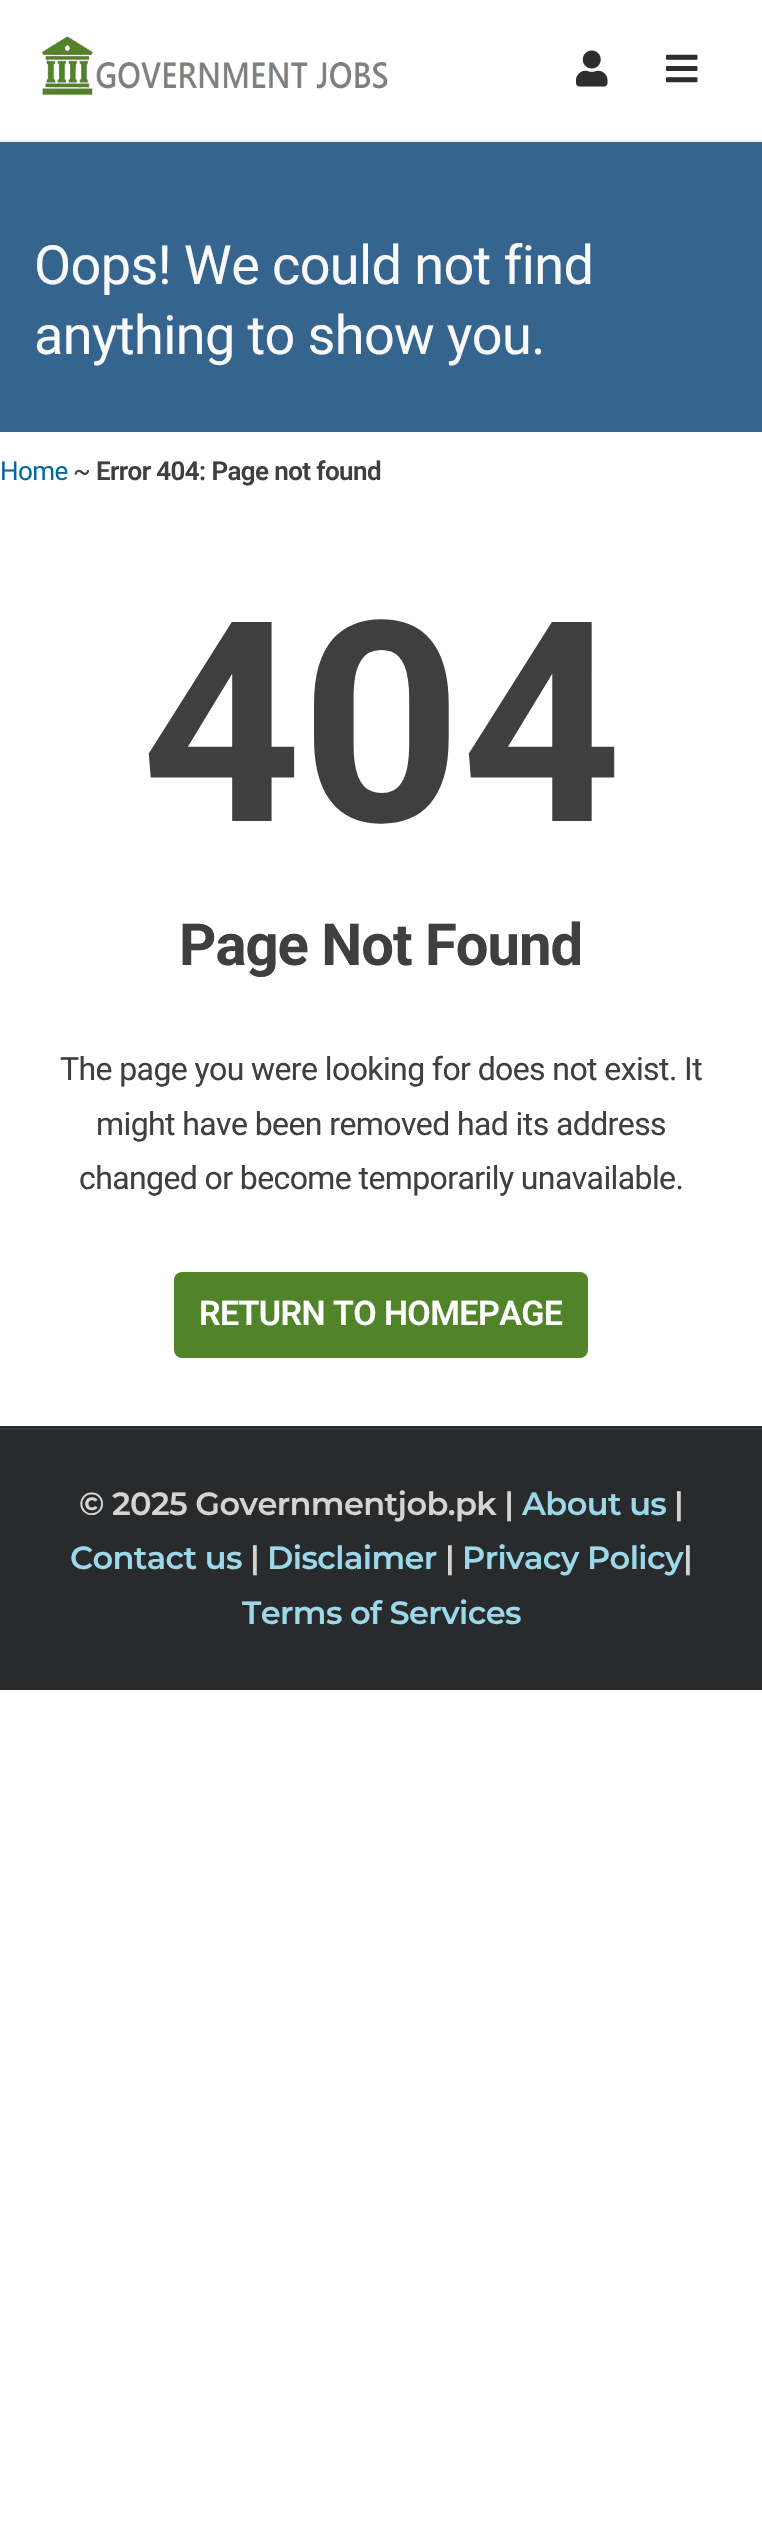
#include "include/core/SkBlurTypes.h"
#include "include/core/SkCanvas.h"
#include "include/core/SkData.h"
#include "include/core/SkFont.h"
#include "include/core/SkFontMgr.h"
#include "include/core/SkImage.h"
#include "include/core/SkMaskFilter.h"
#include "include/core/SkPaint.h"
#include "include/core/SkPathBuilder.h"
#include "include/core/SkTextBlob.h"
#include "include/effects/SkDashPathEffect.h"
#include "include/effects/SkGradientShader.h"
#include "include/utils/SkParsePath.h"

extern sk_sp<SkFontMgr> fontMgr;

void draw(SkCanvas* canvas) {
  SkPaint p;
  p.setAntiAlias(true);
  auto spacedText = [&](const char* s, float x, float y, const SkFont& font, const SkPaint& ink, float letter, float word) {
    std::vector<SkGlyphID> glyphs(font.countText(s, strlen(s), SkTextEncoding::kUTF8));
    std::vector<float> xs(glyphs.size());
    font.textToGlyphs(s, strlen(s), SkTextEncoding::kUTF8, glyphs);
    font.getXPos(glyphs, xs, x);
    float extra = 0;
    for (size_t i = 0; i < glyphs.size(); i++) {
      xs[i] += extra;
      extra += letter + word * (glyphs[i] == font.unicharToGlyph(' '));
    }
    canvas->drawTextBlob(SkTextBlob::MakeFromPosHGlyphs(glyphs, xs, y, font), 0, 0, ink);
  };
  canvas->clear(SK_ColorWHITE);
  p.setColor(SkColorSetRGB(242, 242, 242));
  canvas->drawRect(SkRect::MakeLTRB(0, 140, 762, 142), p);
  canvas->drawImageRect(SkImages::DeferredFromEncodedData(SkData::MakeFromFileName("images/1.png")), SkRect::MakeLTRB(42, 36, 388, 95), SkSamplingOptions());
  canvas->drawImageRect(SkImages::DeferredFromEncodedData(SkData::MakeFromFileName("images/2.png")), SkRect::MakeLTRB(576, 50, 608, 87), SkSamplingOptions());
  canvas->drawImageRect(SkImages::DeferredFromEncodedData(SkData::MakeFromFileName("images/3.png")), SkRect::MakeLTRB(666, 54, 698, 83), SkSamplingOptions());
  p.setColor(SkColorSetRGB(53, 101, 143));
  canvas->drawRect(SkRect::MakeLTRB(0, 142, 762, 432), p);
  p.setColor(SkColorSetRGB(81, 132, 40));
  canvas->drawRoundRect(SkRect::MakeLTRB(174, 1272, 588, 1358), 8, 8, p);
  p.setColor(SkColorSetRGB(41, 42, 44));
  canvas->drawRect(SkRect::MakeLTRB(0, 1426, 762, 1690), p);
  p.setColor(SkColorSetRGB(50, 55, 58));
  canvas->drawRect(SkRect::MakeLTRB(0, 1428, 762, 1430), p);
  SkFont font1(fontMgr->matchFamilyStyle("Roboto", SkFontStyle::Normal()), 54);
  font1.setSubpixel(true);
  p.setColor(SkColorSetRGB(249, 249, 249));
  spacedText("Oops! We could not find", 34, 284, font1, p, -0.6f, 0);
  spacedText("anything to show you.", 34, 354, font1, p, -0.6f, 0);
  SkFont font2(fontMgr->matchFamilyStyle("Roboto", SkFontStyle::Normal()), 26);
  font2.setSubpixel(true);
  p.setColor(SkColorSetRGB(3, 105, 161));
  spacedText("Home", 0, 480, font2, p, -0.6f, 0);
  p.setColor(SkColorSetRGB(63, 63, 63));
  spacedText("~", 73, 480, font2, p, -0.6f, 0);
  SkFont font3(fontMgr->matchFamilyStyle("Roboto", SkFontStyle(600, SkFontStyle::kNormal_Width, SkFontStyle::kUpright_Slant)), 26);
  font3.setSubpixel(true);
  spacedText("Error 404: Page not found", 96, 480, font3, p, -0.6f, 0);
  SkFont font4(fontMgr->matchFamilyStyle("Roboto", SkFontStyle::Bold()), 280);
  font4.setSubpixel(true);
  spacedText("404", 141, 821, font4, p, -0.6f, 0);
  SkFont font5(fontMgr->matchFamilyStyle("Roboto", SkFontStyle::Bold()), 58);
  font5.setSubpixel(true);
  spacedText("Page Not Found", 179, 965, font5, p, -1, 0);
  SkFont font6(fontMgr->matchFamilyStyle("Roboto", SkFontStyle::Normal()), 32);
  font6.setSubpixel(true);
  spacedText("The page you were looking for does not exist. It", 60, 1080, font6, p, -0.6f, 0);
  spacedText("might have been removed had its address", 96, 1135, font6, p, -0.6f, 0);
  spacedText("changed or become temporarily unavailable.", 79, 1189, font6, p, -0.6f, 0);
  SkFont font7(fontMgr->matchFamilyStyle("Roboto", SkFontStyle(600, SkFontStyle::kNormal_Width, SkFontStyle::kUpright_Slant)), 34);
  font7.setSubpixel(true);
  p.setColor(SK_ColorWHITE);
  spacedText("RETURN TO HOMEPAGE", 199, 1325, font7, p, -0.6f, 0);
  SkFont font8(fontMgr->matchFamilyStyle("Montserrat", SkFontStyle(600, SkFontStyle::kNormal_Width, SkFontStyle::kUpright_Slant)), 32);
  font8.setSubpixel(true);
  p.setColor(SkColorSetRGB(212, 212, 213));
  spacedText("© 2025 Governmentjob.pk |", 79, 1515, font8, p, -0.6f, 0);
  p.setColor(SkColorSetRGB(155, 216, 234));
  spacedText("About us", 522, 1515, font8, p, -0.6f, 0);
  p.setColor(SkColorSetRGB(212, 212, 213));
  spacedText("|", 674, 1515, font8, p, -0.6f, 0);
  p.setColor(SkColorSetRGB(155, 216, 234));
  spacedText("Contact us", 70, 1569, font8, p, -0.6f, 0);
  p.setColor(SkColorSetRGB(212, 212, 213));
  spacedText("|", 250, 1569, font8, p, -0.6f, 0);
  p.setColor(SkColorSetRGB(155, 216, 234));
  spacedText("Disclaimer", 267, 1569, font8, p, -0.6f, 0);
  p.setColor(SkColorSetRGB(212, 212, 213));
  spacedText("|", 445, 1569, font8, p, -0.6f, 0);
  p.setColor(SkColorSetRGB(155, 216, 234));
  spacedText("Privacy Policy", 462, 1569, font8, p, -0.6f, 0);
  p.setColor(SkColorSetRGB(212, 212, 213));
  spacedText("|", 683, 1569, font8, p, -0.6f, 0);
  p.setColor(SkColorSetRGB(155, 216, 234));
  spacedText("Terms of Services", 242, 1624, font8, p, -0.6f, 0);
}
